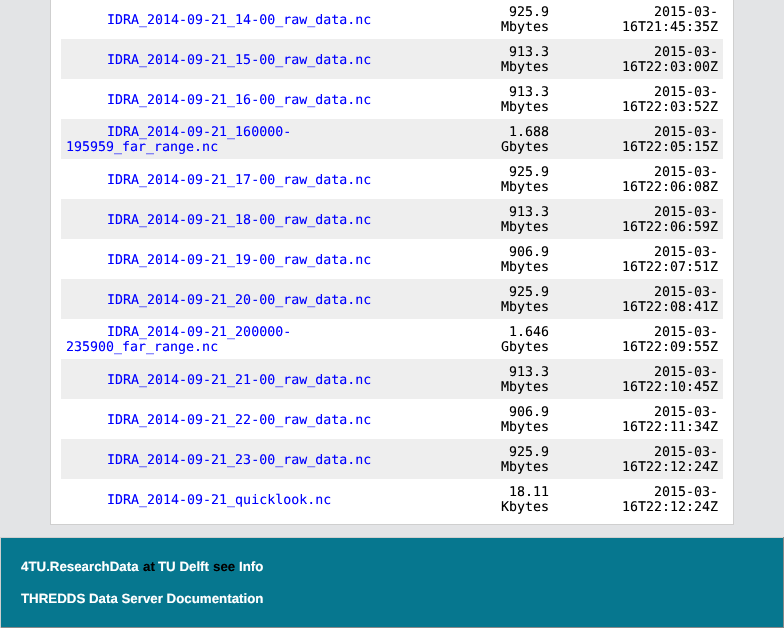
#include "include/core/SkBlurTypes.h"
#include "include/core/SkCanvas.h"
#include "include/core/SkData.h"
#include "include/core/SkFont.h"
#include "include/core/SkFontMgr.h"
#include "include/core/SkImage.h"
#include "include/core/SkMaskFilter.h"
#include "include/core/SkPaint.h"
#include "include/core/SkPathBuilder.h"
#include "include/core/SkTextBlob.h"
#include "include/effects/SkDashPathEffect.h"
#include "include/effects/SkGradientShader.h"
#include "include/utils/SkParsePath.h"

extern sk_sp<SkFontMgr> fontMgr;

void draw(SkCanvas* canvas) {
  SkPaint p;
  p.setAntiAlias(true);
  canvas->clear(SkColorSetRGB(227, 228, 230));
  p.setColor(SK_ColorWHITE);
  canvas->drawRect(SkRect::MakeLTRB(50.5f, -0.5f, 733.5f, 524.5f), p);
  p.setStyle(SkPaint::kStroke_Style);
  p.setStrokeWidth(1);
  p.setColor(SkColorSetRGB(207, 207, 207));
  canvas->drawRect(SkRect::MakeLTRB(50.5f, -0.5f, 733.5f, 524.5f), p);
  p.setStyle(SkPaint::kFill_Style);
  p.setColor(SkColorSetRGB(238, 238, 238));
  canvas->drawRect(SkRect::MakeLTRB(61, 39, 723, 79), p);
  canvas->drawRect(SkRect::MakeLTRB(61, 119, 723, 159), p);
  canvas->drawRect(SkRect::MakeLTRB(61, 199, 723, 239), p);
  canvas->drawRect(SkRect::MakeLTRB(61, 279, 723, 319), p);
  canvas->drawRect(SkRect::MakeLTRB(61, 359, 723, 399), p);
  canvas->drawRect(SkRect::MakeLTRB(61, 439, 723, 479), p);
  p.setColor(SkColorSetRGB(6, 119, 143));
  canvas->drawRect(SkRect::MakeLTRB(1, 538, 783, 627), p);
  p.setColor(SkColorSetRGB(207, 207, 207));
  canvas->drawRect(SkRect::MakeLTRB(0, 537, 784, 538), p);
  p.setColor(SkColorSetRGB(138, 138, 138));
  canvas->drawRect(SkRect::MakeLTRB(783, 537, 784, 628), p);
  canvas->drawRect(SkRect::MakeLTRB(0, 627, 784, 628), p);
  p.setColor(SkColorSetRGB(207, 207, 207));
  canvas->drawRect(SkRect::MakeLTRB(0, 537, 1, 628), p);
  SkFont font1(fontMgr->matchFamilyStyle("DejaVu Sans Mono", SkFontStyle::Normal()), 13.3f);
  font1.setSubpixel(true);
  p.setColor(SkColorSetRGB(0, 0, 255));
  canvas->drawString("IDRA_2014-09-21_14-00_raw_data.nc", 107, 24, font1, p);
  p.setColor(SK_ColorBLACK);
  canvas->drawString("925.9", 509, 16, font1, p);
  canvas->drawString("Mbytes", 501, 31, font1, p);
  canvas->drawString("2015-03-", 654, 16, font1, p);
  canvas->drawString("16T21:45:35Z", 622, 31, font1, p);
  p.setColor(SkColorSetRGB(0, 0, 255));
  canvas->drawString("IDRA_2014-09-21_15-00_raw_data.nc", 107, 64, font1, p);
  p.setColor(SK_ColorBLACK);
  canvas->drawString("913.3", 509, 56, font1, p);
  canvas->drawString("Mbytes", 501, 71, font1, p);
  canvas->drawString("2015-03-", 654, 56, font1, p);
  canvas->drawString("16T22:03:00Z", 622, 71, font1, p);
  p.setColor(SkColorSetRGB(0, 0, 255));
  canvas->drawString("IDRA_2014-09-21_16-00_raw_data.nc", 107, 104, font1, p);
  p.setColor(SK_ColorBLACK);
  canvas->drawString("913.3", 509, 96, font1, p);
  canvas->drawString("Mbytes", 501, 111, font1, p);
  canvas->drawString("2015-03-", 654, 96, font1, p);
  canvas->drawString("16T22:03:52Z", 622, 111, font1, p);
  p.setColor(SkColorSetRGB(0, 0, 255));
  canvas->drawString("IDRA_2014-09-21_160000-", 107, 136, font1, p);
  canvas->drawString("195959_far_range.nc", 66, 151, font1, p);
  p.setColor(SK_ColorBLACK);
  canvas->drawString("1.688", 509, 136, font1, p);
  canvas->drawString("Gbytes", 501, 151, font1, p);
  canvas->drawString("2015-03-", 654, 136, font1, p);
  canvas->drawString("16T22:05:15Z", 622, 151, font1, p);
  p.setColor(SkColorSetRGB(0, 0, 255));
  canvas->drawString("IDRA_2014-09-21_17-00_raw_data.nc", 107, 184, font1, p);
  p.setColor(SK_ColorBLACK);
  canvas->drawString("925.9", 509, 176, font1, p);
  canvas->drawString("Mbytes", 501, 191, font1, p);
  canvas->drawString("2015-03-", 654, 176, font1, p);
  canvas->drawString("16T22:06:08Z", 622, 191, font1, p);
  p.setColor(SkColorSetRGB(0, 0, 255));
  canvas->drawString("IDRA_2014-09-21_18-00_raw_data.nc", 107, 224, font1, p);
  p.setColor(SK_ColorBLACK);
  canvas->drawString("913.3", 509, 216, font1, p);
  canvas->drawString("Mbytes", 501, 231, font1, p);
  canvas->drawString("2015-03-", 654, 216, font1, p);
  canvas->drawString("16T22:06:59Z", 622, 231, font1, p);
  p.setColor(SkColorSetRGB(0, 0, 255));
  canvas->drawString("IDRA_2014-09-21_19-00_raw_data.nc", 107, 264, font1, p);
  p.setColor(SK_ColorBLACK);
  canvas->drawString("906.9", 509, 256, font1, p);
  canvas->drawString("Mbytes", 501, 271, font1, p);
  canvas->drawString("2015-03-", 654, 256, font1, p);
  canvas->drawString("16T22:07:51Z", 622, 271, font1, p);
  p.setColor(SkColorSetRGB(0, 0, 255));
  canvas->drawString("IDRA_2014-09-21_20-00_raw_data.nc", 107, 304, font1, p);
  p.setColor(SK_ColorBLACK);
  canvas->drawString("925.9", 509, 296, font1, p);
  canvas->drawString("Mbytes", 501, 311, font1, p);
  canvas->drawString("2015-03-", 654, 296, font1, p);
  canvas->drawString("16T22:08:41Z", 622, 311, font1, p);
  p.setColor(SkColorSetRGB(0, 0, 255));
  canvas->drawString("IDRA_2014-09-21_200000-", 107, 336, font1, p);
  canvas->drawString("235900_far_range.nc", 66, 351, font1, p);
  p.setColor(SK_ColorBLACK);
  canvas->drawString("1.646", 509, 336, font1, p);
  canvas->drawString("Gbytes", 501, 351, font1, p);
  canvas->drawString("2015-03-", 654, 336, font1, p);
  canvas->drawString("16T22:09:55Z", 622, 351, font1, p);
  p.setColor(SkColorSetRGB(0, 0, 255));
  canvas->drawString("IDRA_2014-09-21_21-00_raw_data.nc", 107, 384, font1, p);
  p.setColor(SK_ColorBLACK);
  canvas->drawString("913.3", 509, 376, font1, p);
  canvas->drawString("Mbytes", 501, 391, font1, p);
  canvas->drawString("2015-03-", 654, 376, font1, p);
  canvas->drawString("16T22:10:45Z", 622, 391, font1, p);
  p.setColor(SkColorSetRGB(0, 0, 255));
  canvas->drawString("IDRA_2014-09-21_22-00_raw_data.nc", 107, 424, font1, p);
  p.setColor(SK_ColorBLACK);
  canvas->drawString("906.9", 509, 416, font1, p);
  canvas->drawString("Mbytes", 501, 431, font1, p);
  canvas->drawString("2015-03-", 654, 416, font1, p);
  canvas->drawString("16T22:11:34Z", 622, 431, font1, p);
  p.setColor(SkColorSetRGB(0, 0, 255));
  canvas->drawString("IDRA_2014-09-21_23-00_raw_data.nc", 107, 464, font1, p);
  p.setColor(SK_ColorBLACK);
  canvas->drawString("925.9", 509, 456, font1, p);
  canvas->drawString("Mbytes", 501, 471, font1, p);
  canvas->drawString("2015-03-", 654, 456, font1, p);
  canvas->drawString("16T22:12:24Z", 622, 471, font1, p);
  p.setColor(SkColorSetRGB(0, 0, 255));
  canvas->drawString("IDRA_2014-09-21_quicklook.nc", 107, 504, font1, p);
  p.setColor(SK_ColorBLACK);
  canvas->drawString("18.11", 509, 496, font1, p);
  canvas->drawString("Kbytes", 501, 511, font1, p);
  canvas->drawString("2015-03-", 654, 496, font1, p);
  canvas->drawString("16T22:12:24Z", 622, 511, font1, p);
  SkFont font2(fontMgr->matchFamilyStyle("Liberation Sans", SkFontStyle::Bold()), 13.3f);
  font2.setSubpixel(true);
  p.setColor(SK_ColorWHITE);
  canvas->drawString("4TU.ResearchData", 21, 571, font2, p);
  p.setColor(SK_ColorBLACK);
  canvas->drawString("at", 143, 571, font2, p);
  p.setColor(SK_ColorWHITE);
  canvas->drawString("TU Delft", 158, 571, font2, p);
  p.setColor(SK_ColorBLACK);
  canvas->drawString("see", 213, 571, font2, p);
  p.setColor(SK_ColorWHITE);
  canvas->drawString("Info", 239, 571, font2, p);
  canvas->drawString("THREDDS Data Server Documentation", 21, 603, font2, p);
}
